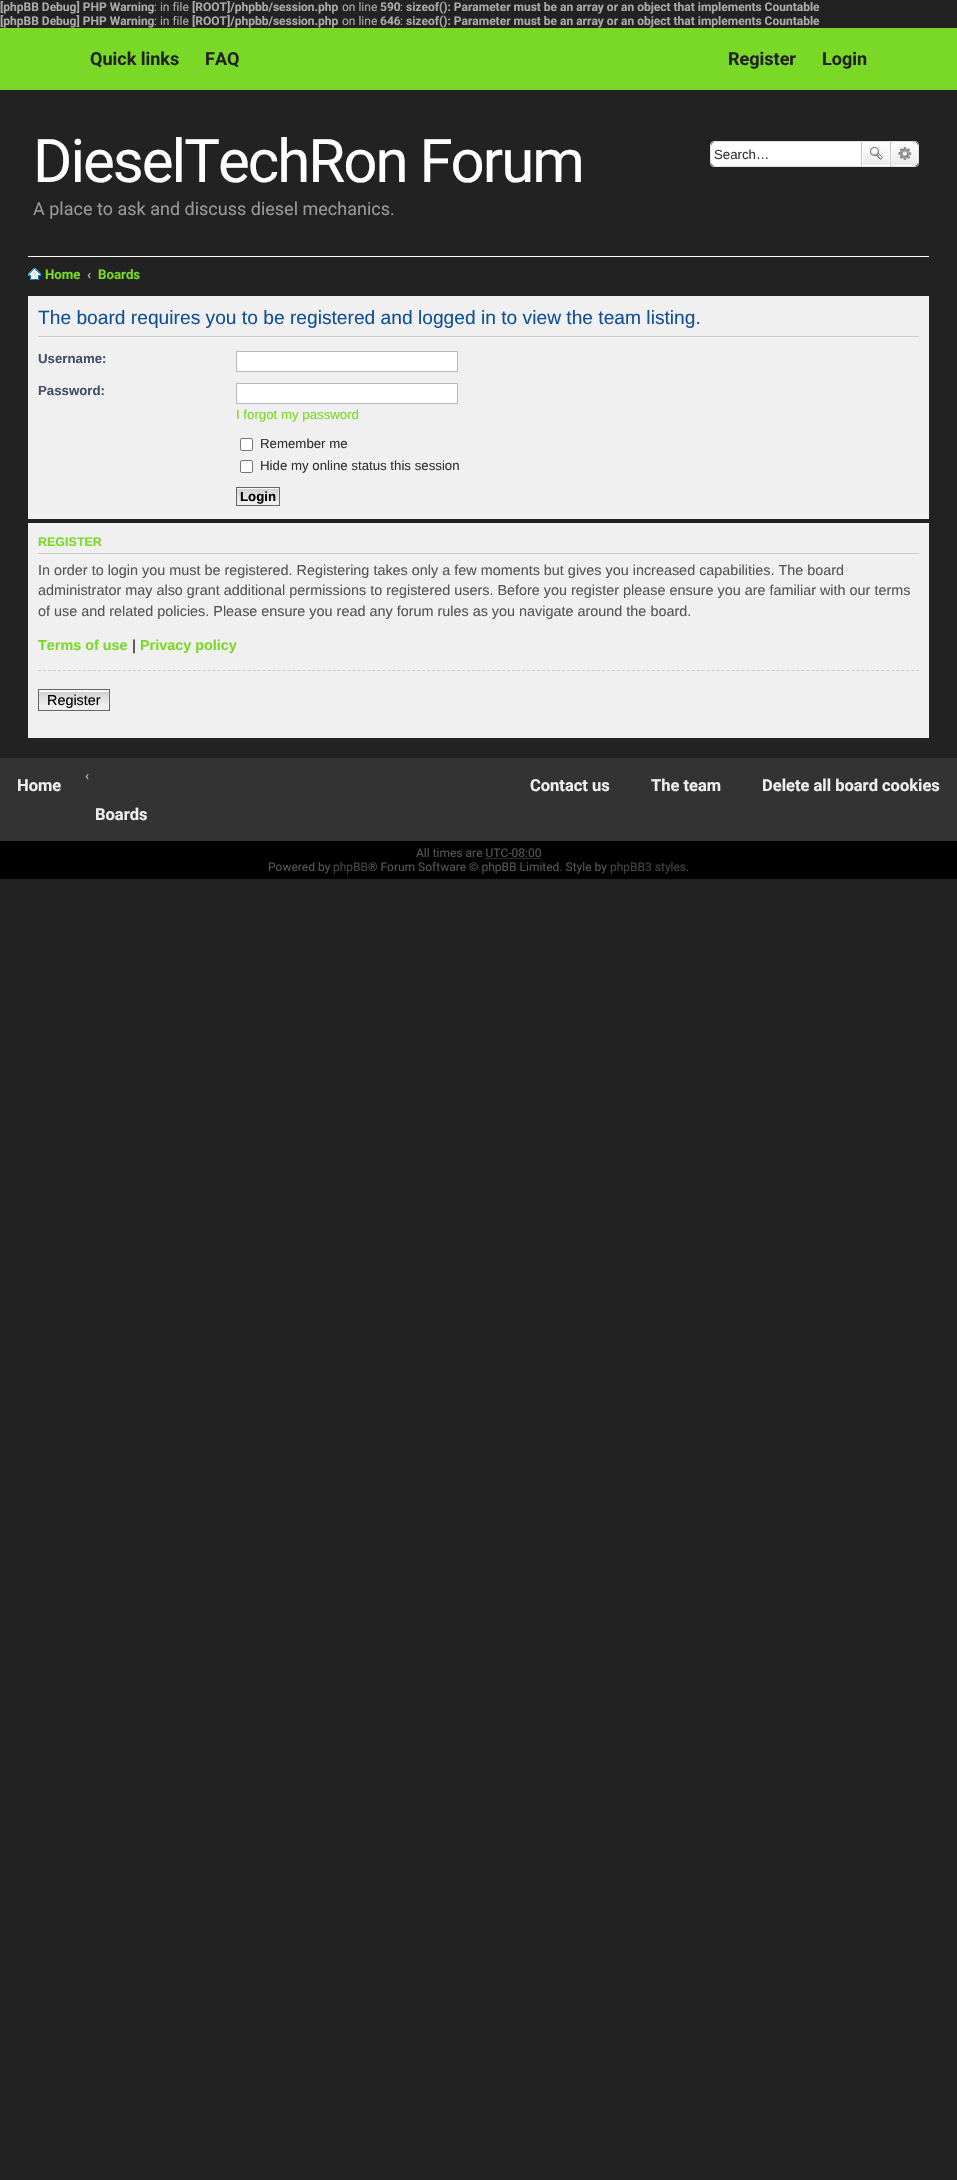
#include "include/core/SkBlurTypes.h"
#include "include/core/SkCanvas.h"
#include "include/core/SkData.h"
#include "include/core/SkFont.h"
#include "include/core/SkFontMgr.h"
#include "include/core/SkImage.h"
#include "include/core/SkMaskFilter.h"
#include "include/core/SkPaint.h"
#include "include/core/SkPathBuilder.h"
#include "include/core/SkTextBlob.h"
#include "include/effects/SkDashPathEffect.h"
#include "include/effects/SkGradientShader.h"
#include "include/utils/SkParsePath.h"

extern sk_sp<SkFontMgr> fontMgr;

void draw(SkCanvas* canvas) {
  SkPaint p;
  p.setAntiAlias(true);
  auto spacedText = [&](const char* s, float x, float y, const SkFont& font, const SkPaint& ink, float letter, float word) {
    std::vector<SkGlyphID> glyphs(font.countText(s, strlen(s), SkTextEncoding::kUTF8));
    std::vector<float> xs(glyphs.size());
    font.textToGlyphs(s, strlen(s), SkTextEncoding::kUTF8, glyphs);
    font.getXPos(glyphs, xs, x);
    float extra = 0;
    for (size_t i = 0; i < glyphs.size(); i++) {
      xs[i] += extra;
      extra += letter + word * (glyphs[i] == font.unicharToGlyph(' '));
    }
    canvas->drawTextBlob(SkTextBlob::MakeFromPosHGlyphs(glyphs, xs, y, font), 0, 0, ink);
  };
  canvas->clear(SkColorSetRGB(34, 34, 34));
  p.setColor(SkColorSetRGB(122, 217, 38));
  canvas->drawRect(SkRect::MakeLTRB(0, 28, 957, 90), p);
  p.setStyle(SkPaint::kStroke_Style);
  p.setStrokeWidth(1);
  p.setColor(SkColorSetRGB(221, 221, 221));
  canvas->drawRoundRect(SkRect::MakeLTRB(710.5f, 141.5f, 918.5f, 166.5f), 3.5f, 3.5f, p);
  p.setStyle(SkPaint::kFill_Style);
  p.setColor(SK_ColorWHITE);
  canvas->drawPath(SkPathBuilder().moveTo(715, 142).lineTo(861, 142).lineTo(861, 166).lineTo(715, 166).cubicTo(713, 166, 711, 164, 711, 162).lineTo(711, 146).cubicTo(711, 144, 713, 142, 715, 142).close().detach(), p);
  {
    const SkColor colors[] = {SK_ColorWHITE, SkColorSetRGB(233, 233, 233)};
    const float stops[] = {0, 1};
    const SkPoint ends[] = {{876, 142}, {876, 166}};
    p.setShader(SkGradientShader::MakeLinear(ends, colors, stops, 2, SkTileMode::kClamp));
    p.setAlpha(255);
  }
  canvas->drawRect(SkRect::MakeLTRB(863, 143, 889, 165), p);
  p.setStyle(SkPaint::kStroke_Style);
  p.setShader(nullptr);
  p.setColor(SK_ColorWHITE);
  canvas->drawRect(SkRect::MakeLTRB(862.5f, 142.5f, 889.5f, 165.5f), p);
  p.setStyle(SkPaint::kFill_Style);
  p.setColor(SkColorSetRGB(199, 195, 191));
  canvas->drawRect(SkRect::MakeLTRB(890, 142, 891, 166), p);
  canvas->drawRect(SkRect::MakeLTRB(861, 142, 862, 166), p);
  canvas->drawImageRect(SkImages::DeferredFromEncodedData(SkData::MakeFromFileName("images/1.png")), SkRect::MakeLTRB(870, 147, 883, 160), SkSamplingOptions());
  {
    const SkColor colors[] = {SK_ColorWHITE, SkColorSetRGB(233, 233, 233)};
    const float stops[] = {0, 1};
    const SkPoint ends[] = {{905, 142}, {905, 166}};
    p.setShader(SkGradientShader::MakeLinear(ends, colors, stops, 2, SkTileMode::kClamp));
    p.setAlpha(255);
  }
  canvas->drawPath(SkPathBuilder().moveTo(891.5f, 142.5f).lineTo(914, 142.5f).cubicTo(916, 142.5f, 917.5f, 144, 917.5f, 146).lineTo(917.5f, 162).cubicTo(917.5f, 164, 916, 165.5f, 914, 165.5f).lineTo(891.5f, 165.5f).close().detach(), p);
  p.setStyle(SkPaint::kStroke_Style);
  p.setShader(nullptr);
  p.setColor(SK_ColorWHITE);
  canvas->drawPath(SkPathBuilder().moveTo(891.5f, 142.5f).lineTo(914, 142.5f).cubicTo(916, 142.5f, 917.5f, 144, 917.5f, 146).lineTo(917.5f, 162).cubicTo(917.5f, 164, 916, 165.5f, 914, 165.5f).lineTo(891.5f, 165.5f).close().detach(), p);
  canvas->drawImageRect(SkImages::DeferredFromEncodedData(SkData::MakeFromFileName("images/2.png")), SkRect::MakeLTRB(898, 147, 912, 160), SkSamplingOptions());
  p.setStyle(SkPaint::kFill_Style);
  canvas->drawRect(SkRect::MakeLTRB(28, 256, 929, 257), p);
  canvas->drawImageRect(SkImages::DeferredFromEncodedData(SkData::MakeFromFileName("images/3.png")), SkRect::MakeLTRB(28, 268, 41, 280), SkSamplingOptions());
  p.setColor(SkColorSetRGB(240, 240, 240));
  canvas->drawRect(SkRect::MakeLTRB(28, 296, 929, 519), p);
  p.setColor(SkColorSetRGB(204, 204, 204));
  canvas->drawRect(SkRect::MakeLTRB(38, 336, 919, 337), p);
  p.setColor(SK_ColorWHITE);
  canvas->drawRect(SkRect::MakeLTRB(236.5f, 351.5f, 457.5f, 371.5f), p);
  p.setStyle(SkPaint::kStroke_Style);
  p.setColor(SkColorSetRGB(180, 186, 192));
  canvas->drawRect(SkRect::MakeLTRB(236.5f, 351.5f, 457.5f, 371.5f), p);
  p.setStyle(SkPaint::kFill_Style);
  p.setColor(SK_ColorWHITE);
  canvas->drawRect(SkRect::MakeLTRB(236.5f, 383.5f, 457.5f, 403.5f), p);
  p.setStyle(SkPaint::kStroke_Style);
  p.setColor(SkColorSetRGB(180, 186, 192));
  canvas->drawRect(SkRect::MakeLTRB(236.5f, 383.5f, 457.5f, 403.5f), p);
  p.setStyle(SkPaint::kFill_Style);
  p.setColor(SK_ColorWHITE);
  canvas->drawRoundRect(SkRect::MakeLTRB(240.5f, 438.5f, 252.5f, 450.5f), 1.5f, 1.5f, p);
  p.setStyle(SkPaint::kStroke_Style);
  p.setColor(SkColorSetRGB(118, 118, 118));
  canvas->drawRoundRect(SkRect::MakeLTRB(240.5f, 438.5f, 252.5f, 450.5f), 1.5f, 1.5f, p);
  p.setStyle(SkPaint::kFill_Style);
  p.setColor(SK_ColorWHITE);
  canvas->drawRoundRect(SkRect::MakeLTRB(240.5f, 460.5f, 252.5f, 472.5f), 1.5f, 1.5f, p);
  p.setStyle(SkPaint::kStroke_Style);
  p.setColor(SkColorSetRGB(118, 118, 118));
  canvas->drawRoundRect(SkRect::MakeLTRB(240.5f, 460.5f, 252.5f, 472.5f), 1.5f, 1.5f, p);
  canvas->drawImageRect(SkImages::DeferredFromEncodedData(SkData::MakeFromFileName("images/4.png")), SkRect::MakeLTRB(237, 488, 279, 505), SkSamplingOptions());
  p.setColor(SkColorSetRGB(102, 102, 102));
  canvas->drawRect(SkRect::MakeLTRB(236.5f, 487.5f, 279.5f, 505.5f), p);
  p.setStyle(SkPaint::kFill_Style);
  p.setColor(SkColorSetRGB(240, 240, 240));
  canvas->drawRect(SkRect::MakeLTRB(28, 523, 929, 738), p);
  p.setColor(SkColorSetRGB(204, 204, 204));
  canvas->drawRect(SkRect::MakeLTRB(38, 553, 919, 554), p);
  p.setStyle(SkPaint::kStroke_Style);
  p.setPathEffect(SkDashPathEffect::Make({{3, 1.99f}}, 0));
  canvas->drawPath(SkPathBuilder().moveTo(38, 670.5f).lineTo(919, 670.5f).detach(), p);
  p.setPathEffect(nullptr);
  canvas->drawImageRect(SkImages::DeferredFromEncodedData(SkData::MakeFromFileName("images/5.png")), SkRect::MakeLTRB(39, 691, 109, 710), SkSamplingOptions());
  p.setStyle(SkPaint::kFill_Style);
  p.setColor(SkColorSetRGB(250, 250, 250));
  canvas->drawRect(SkRect::MakeLTRB(39, 690, 109, 691), p);
  p.setStyle(SkPaint::kStroke_Style);
  p.setColor(SkColorSetRGB(102, 102, 102));
  canvas->drawRect(SkRect::MakeLTRB(38.5f, 689.5f, 109.5f, 710.5f), p);
  p.setStyle(SkPaint::kFill_Style);
  p.setColor(SkColorSetRGB(51, 51, 51));
  canvas->drawRect(SkRect::MakeLTRB(0, 758, 957, 841), p);
  p.setColor(SK_ColorBLACK);
  canvas->drawRect(SkRect::MakeLTRB(0, 841, 957, 879), p);
  p.setStyle(SkPaint::kStroke_Style);
  p.setColor(SkColorSetRGB(85, 85, 85));
  p.setPathEffect(SkDashPathEffect::Make({{1, 1}}, 0));
  canvas->drawPath(SkPathBuilder().moveTo(485.5f, 858.5f).lineTo(541, 858.5f).detach(), p);
  p.setPathEffect(nullptr);
  SkFont font1(fontMgr->matchFamilyStyle("Roboto", SkFontStyle::Bold()), 12);
  font1.setSubpixel(true);
  p.setStyle(SkPaint::kFill_Style);
  p.setColor(SkColorSetRGB(170, 170, 170));
  canvas->drawString("[phpBB Debug] PHP Warning", 0, 11, font1, p);
  SkFont font2(fontMgr->matchFamilyStyle("Roboto", SkFontStyle::Normal()), 12);
  font2.setSubpixel(true);
  canvas->drawString(": in file", 154, 11, font2, p);
  canvas->drawString("[ROOT]/phpbb/session.php", 192, 11, font1, p);
  canvas->drawString("on line", 342, 11, font2, p);
  canvas->drawString("590", 380, 11, font1, p);
  canvas->drawString(":", 400, 11, font2, p);
  canvas->drawString("sizeof(): Parameter must be an array or an object that implements Countable", 406, 11, font1, p);
  canvas->drawString("[phpBB Debug] PHP Warning", 0, 25, font1, p);
  canvas->drawString(": in file", 154, 25, font2, p);
  canvas->drawString("[ROOT]/phpbb/session.php", 192, 25, font1, p);
  canvas->drawString("on line", 342, 25, font2, p);
  canvas->drawString("646", 380, 25, font1, p);
  canvas->drawString(":", 400, 25, font2, p);
  canvas->drawString("sizeof(): Parameter must be an array or an object that implements Countable", 406, 25, font1, p);
  SkFont font3(fontMgr->matchFamilyStyle("Roboto", SkFontStyle::Bold()), 18);
  font3.setSubpixel(true);
  p.setColor(SkColorSetRGB(34, 34, 34));
  canvas->drawString("Quick links", 90, 65, font3, p);
  canvas->drawString("FAQ", 205, 65, font3, p);
  canvas->drawString("Register", 728, 65, font3, p);
  canvas->drawString("Login", 822, 65, font3, p);
  SkFont font4(fontMgr->matchFamilyStyle("Roboto", SkFontStyle::Normal()), 60);
  font4.setSubpixel(true);
  p.setColor(SK_ColorWHITE);
  spacedText("DieselTechRon Forum", 33, 182, font4, p, -2, 0);
  SkFont font5(fontMgr->matchFamilyStyle("Roboto", SkFontStyle::Normal()), 18);
  font5.setSubpixel(true);
  p.setColor(SkColorSetRGB(153, 153, 153));
  canvas->drawString("A place to ask and discuss diesel mechanics.", 33, 215, font5, p);
  SkFont font6(fontMgr->matchFamilyStyle("Liberation Sans", SkFontStyle::Normal()), 13.25f);
  font6.setSubpixel(true);
  p.setColor(SkColorSetRGB(51, 51, 51));
  canvas->drawString("Search…", 714, 159, font6, p);
  SkFont font7(fontMgr->matchFamilyStyle("Roboto", SkFontStyle::Bold()), 13.25f);
  font7.setSubpixel(true);
  p.setColor(SkColorSetRGB(122, 217, 38));
  canvas->drawString("Home", 45, 279, font7, p);
  p.setColor(SkColorSetRGB(170, 170, 170));
  canvas->drawString("‹", 87, 279, font7, p);
  p.setColor(SkColorSetRGB(122, 217, 38));
  canvas->drawString("Boards", 98, 279, font7, p);
  SkFont font8(fontMgr->matchFamilyStyle("Liberation Sans", SkFontStyle::Normal()), 19.2f);
  font8.setSubpixel(true);
  p.setColor(SkColorSetRGB(17, 80, 152));
  canvas->drawString("The board requires you to be registered and logged in to view the team listing.", 38, 324, font8, p);
  SkFont font9(fontMgr->matchFamilyStyle("Liberation Sans", SkFontStyle::Bold()), 13.25f);
  font9.setSubpixel(true);
  p.setColor(SkColorSetRGB(66, 80, 103));
  canvas->drawString("Username:", 38, 363, font9, p);
  canvas->drawString("Password:", 38, 395, font9, p);
  p.setColor(SkColorSetRGB(122, 217, 38));
  canvas->drawString("I forgot my password", 236, 419, font6, p);
  p.setColor(SkColorSetRGB(51, 51, 51));
  canvas->drawString("Remember me", 260, 448, font6, p);
  canvas->drawString("Hide my online status this session", 260, 470, font6, p);
  p.setColor(SK_ColorBLACK);
  canvas->drawString("Login", 240, 501, font9, p);
  SkFont font10(fontMgr->matchFamilyStyle("Liberation Sans", SkFontStyle::Bold()), 12.5f);
  font10.setSubpixel(true);
  p.setColor(SkColorSetRGB(122, 217, 38));
  canvas->drawString("REGISTER", 38, 546, font10, p);
  SkFont font11(fontMgr->matchFamilyStyle("Liberation Sans", SkFontStyle::Normal()), 14.4f);
  font11.setSubpixel(true);
  p.setColor(SkColorSetRGB(85, 85, 85));
  canvas->drawString("In order to login you must be registered. Registering takes only a few moments but gives you increased capabilities. The board", 38, 575, font11, p);
  canvas->drawString("administrator may also grant additional permissions to registered users. Before you register please ensure you are familiar with our terms", 38, 595, font11, p);
  canvas->drawString("of use and related policies. Please ensure you read any forum rules as you navigate around the board.", 38, 616, font11, p);
  SkFont font12(fontMgr->matchFamilyStyle("Liberation Sans", SkFontStyle::Bold()), 14.4f);
  font12.setSubpixel(true);
  p.setColor(SkColorSetRGB(122, 217, 38));
  canvas->drawString("Terms of use", 38, 650, font12, p);
  p.setColor(SkColorSetRGB(85, 85, 85));
  canvas->drawString("|", 132, 650, font12, p);
  p.setColor(SkColorSetRGB(122, 217, 38));
  canvas->drawString("Privacy policy", 140, 650, font12, p);
  p.setColor(SK_ColorBLACK);
  canvas->drawString("Register", 47, 705, font11, p);
  SkFont font13(fontMgr->matchFamilyStyle("Roboto", SkFontStyle::Bold()), 16.5f);
  font13.setSubpixel(true);
  p.setColor(SkColorSetRGB(238, 238, 238));
  canvas->drawString("Home", 17, 791, font13, p);
  p.setColor(SkColorSetRGB(170, 170, 170));
  canvas->drawString("‹", 85, 780, font7, p);
  p.setColor(SkColorSetRGB(238, 238, 238));
  canvas->drawString("Boards", 95, 820, font13, p);
  canvas->drawString("Contact us", 530, 791, font13, p);
  canvas->drawString("The team", 651, 791, font13, p);
  canvas->drawString("Delete all board cookies", 762, 791, font13, p);
  p.setColor(SkColorSetRGB(85, 85, 85));
  canvas->drawString("All times are UTC-08:00", 416, 857, font2, p);
  canvas->drawString("Powered by", 268, 871, font2, p);
  p.setColor(SkColorSetRGB(68, 68, 68));
  canvas->drawString("phpBB", 333, 871, font2, p);
  p.setColor(SkColorSetRGB(85, 85, 85));
  canvas->drawString("® Forum Software © phpBB Limited. Style by", 368, 871, font2, p);
  p.setColor(SkColorSetRGB(68, 68, 68));
  canvas->drawString("phpBB3 styles", 610, 871, font2, p);
  p.setColor(SkColorSetRGB(85, 85, 85));
  canvas->drawString(".", 686, 871, font2, p);
}
